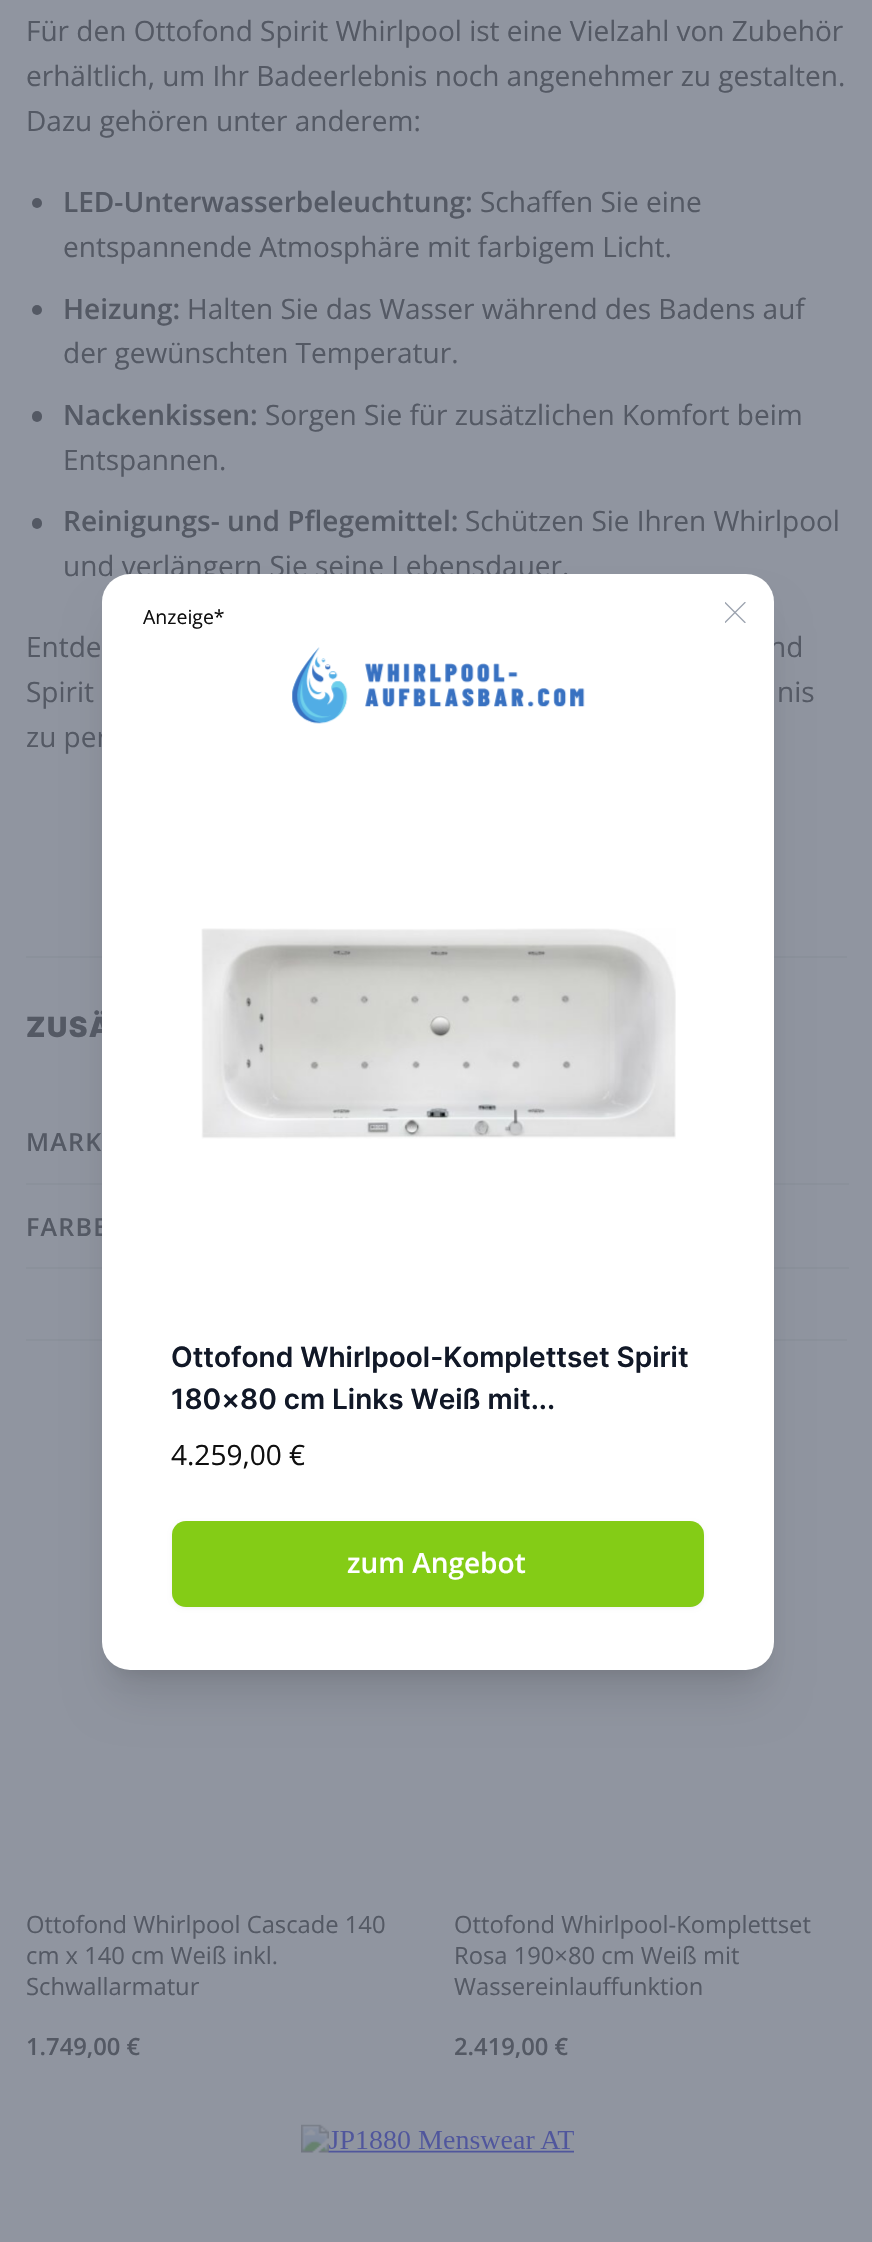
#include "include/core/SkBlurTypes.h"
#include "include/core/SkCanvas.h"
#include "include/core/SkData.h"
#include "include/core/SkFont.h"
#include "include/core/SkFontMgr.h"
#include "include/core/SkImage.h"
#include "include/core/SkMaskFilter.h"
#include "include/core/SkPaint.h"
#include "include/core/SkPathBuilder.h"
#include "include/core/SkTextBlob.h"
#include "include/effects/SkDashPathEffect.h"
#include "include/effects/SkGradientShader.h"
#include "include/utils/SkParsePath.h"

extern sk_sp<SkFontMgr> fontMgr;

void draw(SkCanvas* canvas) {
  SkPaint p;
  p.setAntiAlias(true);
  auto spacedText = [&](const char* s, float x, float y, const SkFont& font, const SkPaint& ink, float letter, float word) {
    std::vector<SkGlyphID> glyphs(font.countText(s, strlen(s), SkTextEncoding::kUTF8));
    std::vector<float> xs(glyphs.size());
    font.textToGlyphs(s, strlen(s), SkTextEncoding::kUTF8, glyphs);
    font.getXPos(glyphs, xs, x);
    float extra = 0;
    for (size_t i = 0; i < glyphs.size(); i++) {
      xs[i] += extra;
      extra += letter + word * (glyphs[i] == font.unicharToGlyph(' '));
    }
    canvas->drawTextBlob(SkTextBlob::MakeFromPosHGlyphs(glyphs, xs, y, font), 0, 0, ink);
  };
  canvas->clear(SkColorSetRGB(144, 149, 160));
  p.setColor(SkColorSetRGB(84, 89, 100));
  canvas->drawCircle(37, 203, 5, p);
  canvas->drawCircle(37, 310, 5, p);
  canvas->drawRoundRect(SkRect::MakeLTRB(32, 411, 42, 422), 5, 5, p);
  canvas->drawRoundRect(SkRect::MakeLTRB(32, 518, 42, 529), 5, 5, p);
  p.setColor(SkColorSetRGB(139, 145, 155));
  canvas->drawRect(SkRect::MakeLTRB(26, 956, 847, 958), p);
  canvas->drawRect(SkRect::MakeLTRB(26, 1183, 102, 1185), p);
  canvas->drawRect(SkRect::MakeLTRB(774, 1183, 849, 1185), p);
  canvas->drawRect(SkRect::MakeLTRB(26, 1267, 102, 1269), p);
  canvas->drawRect(SkRect::MakeLTRB(774, 1267, 849, 1269), p);
  canvas->drawRect(SkRect::MakeLTRB(26, 1339, 847, 1341), p);
  canvas->drawImageRect(SkImages::DeferredFromEncodedData(SkData::MakeFromFileName("images/1.png")), SkRect::MakeLTRB(301, 2124, 574, 2153), SkSamplingOptions());
  p.setColor(SkColorSetARGB(26, 0, 0, 0));
  p.setMaskFilter(SkMaskFilter::MakeBlur(kNormal_SkBlurStyle, 9));
  canvas->drawRoundRect(SkRect::MakeLTRB(112, 599, 763, 1673), 18, 18, p);
  p.setMaskFilter(nullptr);
  p.setMaskFilter(SkMaskFilter::MakeBlur(kNormal_SkBlurStyle, 22));
  canvas->drawRoundRect(SkRect::MakeLTRB(110, 618, 765, 1696), 19, 19, p);
  p.setMaskFilter(nullptr);
  SkFont font1(fontMgr->matchFamilyStyle("Open Sans", SkFontStyle::Normal()), 28);
  font1.setSubpixel(true);
  p.setColor(SkColorSetRGB(84, 89, 100));
  canvas->drawString("Für den Ottofond Spirit Whirlpool ist eine Vielzahl von Zubehör", 26, 41, font1, p);
  canvas->drawString("erhältlich, um Ihr Badeerlebnis noch angenehmer zu gestalten.", 26, 86, font1, p);
  canvas->drawString("Dazu gehören unter anderem:", 26, 131, font1, p);
  SkFont font2(fontMgr->matchFamilyStyle("Open Sans", SkFontStyle(600, SkFontStyle::kNormal_Width, SkFontStyle::kUpright_Slant)), 28);
  font2.setSubpixel(true);
  canvas->drawString("LED-Unterwasserbeleuchtung:", 63, 212, font2, p);
  canvas->drawString("Schaffen Sie eine", 480, 212, font1, p);
  canvas->drawString("entspannende Atmosphäre mit farbigem Licht.", 63, 257, font1, p);
  canvas->drawString("Heizung:", 63, 319, font2, p);
  canvas->drawString("Halten Sie das Wasser während des Badens auf", 187, 319, font1, p);
  canvas->drawString("der gewünschten Temperatur.", 63, 363, font1, p);
  canvas->drawString("Nackenkissen:", 63, 425, font2, p);
  canvas->drawString("Sorgen Sie für zusätzlichen Komfort beim", 265, 425, font1, p);
  canvas->drawString("Entspannen.", 63, 470, font1, p);
  canvas->drawString("Reinigungs- und Pflegemittel:", 63, 531, font2, p);
  canvas->drawString("Schützen Sie Ihren Whirlpool", 465, 531, font1, p);
  canvas->drawString("und verlängern Sie seine Lebensdauer.", 63, 576, font1, p);
  canvas->drawString("Entde", 26, 657, font1, p);
  canvas->drawString("nd", 769, 657, font1, p);
  canvas->drawString("Spirit", 26, 702, font1, p);
  canvas->drawString("nis", 777, 702, font1, p);
  canvas->drawString("zu per", 26, 747, font1, p);
  SkFont font3(fontMgr->matchFamilyStyle("Inter", SkFontStyle(900, SkFontStyle::kNormal_Width, SkFontStyle::kUpright_Slant)), 28);
  font3.setSubpixel(true);
  spacedText("ZUSÄ", 26, 1037, font3, p, 1.5f, 0);
  SkFont font4(fontMgr->matchFamilyStyle("Open Sans", SkFontStyle(600, SkFontStyle::kNormal_Width, SkFontStyle::kUpright_Slant)), 25);
  font4.setSubpixel(true);
  spacedText("MARK", 26, 1151, font4, p, 1.25f, 0);
  spacedText("FARBE", 26, 1236, font4, p, 1.25f, 0);
  SkFont font5(fontMgr->matchFamilyStyle("Open Sans", SkFontStyle::Normal()), 23.75f);
  font5.setSubpixel(true);
  canvas->drawString("Ottofond Whirlpool Cascade 140", 26, 1933, font5, p);
  canvas->drawString("cm x 140 cm Weiß inkl.", 26, 1964, font5, p);
  canvas->drawString("Schwallarmatur", 26, 1995, font5, p);
  SkFont font6(fontMgr->matchFamilyStyle("Open Sans", SkFontStyle(600, SkFontStyle::kNormal_Width, SkFontStyle::kUpright_Slant)), 23.75f);
  font6.setSubpixel(true);
  canvas->drawString("1.749,00 €", 26, 2055, font6, p);
  canvas->drawString("Ottofond Whirlpool-Komplettset", 454, 1933, font5, p);
  canvas->drawString("Rosa 190×80 cm Weiß mit", 454, 1964, font5, p);
  canvas->drawString("Wassereinlauffunktion", 454, 1995, font5, p);
  canvas->drawString("2.419,00 €", 454, 2055, font6, p);
  p.setColor(SK_ColorWHITE);
  canvas->drawRoundRect(SkRect::MakeLTRB(102, 574, 774, 1670), 28, 28, p);
  SkFont font7(fontMgr->matchFamilyStyle("Open Sans", SkFontStyle::Normal()), 19.5f);
  font7.setSubpixel(true);
  p.setColor(SkColorSetRGB(15, 15, 15));
  canvas->drawString("Anzeige*", 143, 624, font7, p);
  canvas->save();
  canvas->clipRect(SkRect::MakeLTRB(725, 602, 746, 623));
  p.setStyle(SkPaint::kStroke_Style);
  p.setStrokeWidth(1.3f);
  p.setStrokeCap(SkPaint::kRound_Cap);
  p.setStrokeJoin(SkPaint::kRound_Join);
  p.setColor(SkColorSetRGB(156, 163, 175));
  canvas->drawPath(SkPathBuilder().moveTo(725, 622.5f).lineTo(745, 602.5f).moveTo(725, 602.5f).lineTo(745, 622.5f).detach(), p);
  canvas->restore();
  canvas->drawImageRect(SkImages::DeferredFromEncodedData(SkData::MakeFromFileName("images/2.png")), SkRect::MakeLTRB(292, 647, 585, 724), SkSamplingOptions());
  canvas->drawImageRect(SkImages::DeferredFromEncodedData(SkData::MakeFromFileName("images/3.png")), SkRect::MakeLTRB(201, 928, 676, 1139), SkSamplingOptions());
  SkFont font8(fontMgr->matchFamilyStyle("Inter", SkFontStyle(600, SkFontStyle::kNormal_Width, SkFontStyle::kUpright_Slant)), 28);
  font8.setSubpixel(true);
  p.setStyle(SkPaint::kFill_Style);
  p.setColor(SkColorSetRGB(17, 24, 39));
  canvas->drawString("Ottofond Whirlpool-Komplettset Spirit", 171, 1367, font8, p);
  canvas->drawString("180×80 cm Links Weiß mit...", 171, 1409, font8, p);
  p.setColor(SkColorSetRGB(15, 15, 15));
  canvas->drawString("4.259,00 €", 171, 1465, font1, p);
  p.setColor(SkColorSetARGB(13, 0, 0, 0));
  p.setMaskFilter(SkMaskFilter::MakeBlur(kNormal_SkBlurStyle, 2));
  canvas->drawRoundRect(SkRect::MakeLTRB(172, 1523, 704, 1608), 14, 14, p);
  p.setMaskFilter(nullptr);
  p.setColor(SkColorSetRGB(132, 204, 22));
  canvas->drawRoundRect(SkRect::MakeLTRB(172, 1521, 704, 1607), 14, 14, p);
  p.setColor(SK_ColorWHITE);
  canvas->drawString("zum Angebot", 347, 1573, font2, p);
}
